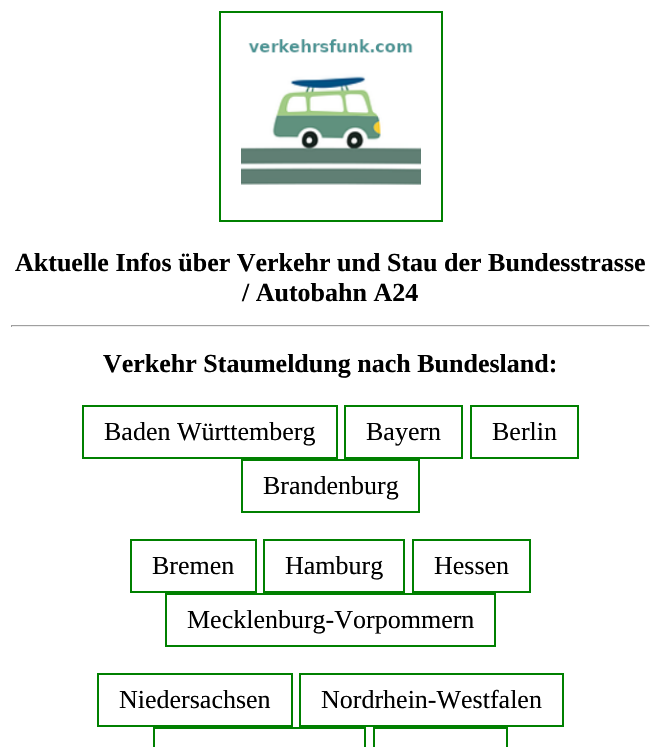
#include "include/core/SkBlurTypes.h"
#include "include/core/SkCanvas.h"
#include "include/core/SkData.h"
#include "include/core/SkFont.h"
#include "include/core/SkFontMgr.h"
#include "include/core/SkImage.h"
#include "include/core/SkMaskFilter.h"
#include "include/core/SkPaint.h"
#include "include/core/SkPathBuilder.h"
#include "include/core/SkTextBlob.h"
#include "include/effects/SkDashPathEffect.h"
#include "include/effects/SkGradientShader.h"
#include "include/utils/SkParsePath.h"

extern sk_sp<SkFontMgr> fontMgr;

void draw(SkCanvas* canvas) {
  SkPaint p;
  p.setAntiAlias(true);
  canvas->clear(SK_ColorWHITE);
  p.setStyle(SkPaint::kStroke_Style);
  p.setStrokeWidth(2);
  p.setColor(SkColorSetRGB(0, 128, 0));
  canvas->drawRect(SkRect::MakeLTRB(220, 12, 442, 221), p);
  canvas->drawImageRect(SkImages::DeferredFromEncodedData(SkData::MakeFromFileName("images/1.png")), SkRect::MakeLTRB(241, 39, 421, 185), SkSamplingOptions());
  p.setStyle(SkPaint::kFill_Style);
  p.setColor(SkColorSetRGB(159, 159, 159));
  canvas->drawRect(SkRect::MakeLTRB(11, 325, 650, 326), p);
  p.setColor(SkColorSetRGB(238, 238, 238));
  canvas->drawRect(SkRect::MakeLTRB(649, 325, 650, 327), p);
  canvas->drawRect(SkRect::MakeLTRB(11, 326, 650, 327), p);
  p.setColor(SkColorSetRGB(159, 159, 159));
  canvas->drawRect(SkRect::MakeLTRB(11, 325, 12, 327), p);
  p.setStyle(SkPaint::kStroke_Style);
  p.setColor(SkColorSetRGB(0, 128, 0));
  canvas->drawRect(SkRect::MakeLTRB(83, 406, 337, 458), p);
  canvas->drawRect(SkRect::MakeLTRB(345, 406, 462, 458), p);
  canvas->drawRect(SkRect::MakeLTRB(471, 406, 578, 458), p);
  canvas->drawRect(SkRect::MakeLTRB(242, 460, 419, 512), p);
  canvas->drawRect(SkRect::MakeLTRB(131, 540, 256, 592), p);
  canvas->drawRect(SkRect::MakeLTRB(264, 540, 404, 592), p);
  canvas->drawRect(SkRect::MakeLTRB(413, 540, 530, 592), p);
  canvas->drawRect(SkRect::MakeLTRB(166, 594, 495, 646), p);
  canvas->drawRect(SkRect::MakeLTRB(98, 674, 292, 726), p);
  canvas->drawRect(SkRect::MakeLTRB(300, 674, 563, 726), p);
  canvas->drawRect(SkRect::MakeLTRB(154, 728, 365, 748), p);
  canvas->drawRect(SkRect::MakeLTRB(374, 728, 507, 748), p);
  SkFont font1(fontMgr->matchFamilyStyle("Liberation Serif", SkFontStyle::Bold()), 26);
  font1.setSubpixel(true);
  p.setStyle(SkPaint::kFill_Style);
  p.setColor(SK_ColorBLACK);
  canvas->drawString("Aktuelle Infos über Verkehr und Stau der Bundesstrasse", 15, 271, font1, p);
  canvas->drawString("/ Autobahn A24", 242, 301, font1, p);
  canvas->drawString("Verkehr Staumeldung nach Bundesland:", 103, 372, font1, p);
  SkFont font2(fontMgr->matchFamilyStyle("Liberation Serif", SkFontStyle::Normal()), 26);
  font2.setSubpixel(true);
  canvas->drawString("Baden Württemberg", 104, 440, font2, p);
  canvas->drawString("Bayern", 366, 440, font2, p);
  canvas->drawString("Berlin", 492, 440, font2, p);
  canvas->drawString("Brandenburg", 263, 494, font2, p);
  canvas->drawString("Bremen", 152, 574, font2, p);
  canvas->drawString("Hamburg", 285, 574, font2, p);
  canvas->drawString("Hessen", 434, 574, font2, p);
  canvas->drawString("Mecklenburg-Vorpommern", 187, 628, font2, p);
  canvas->drawString("Niedersachsen", 119, 708, font2, p);
  canvas->drawString("Nordrhein-Westfalen", 321, 708, font2, p);
}
